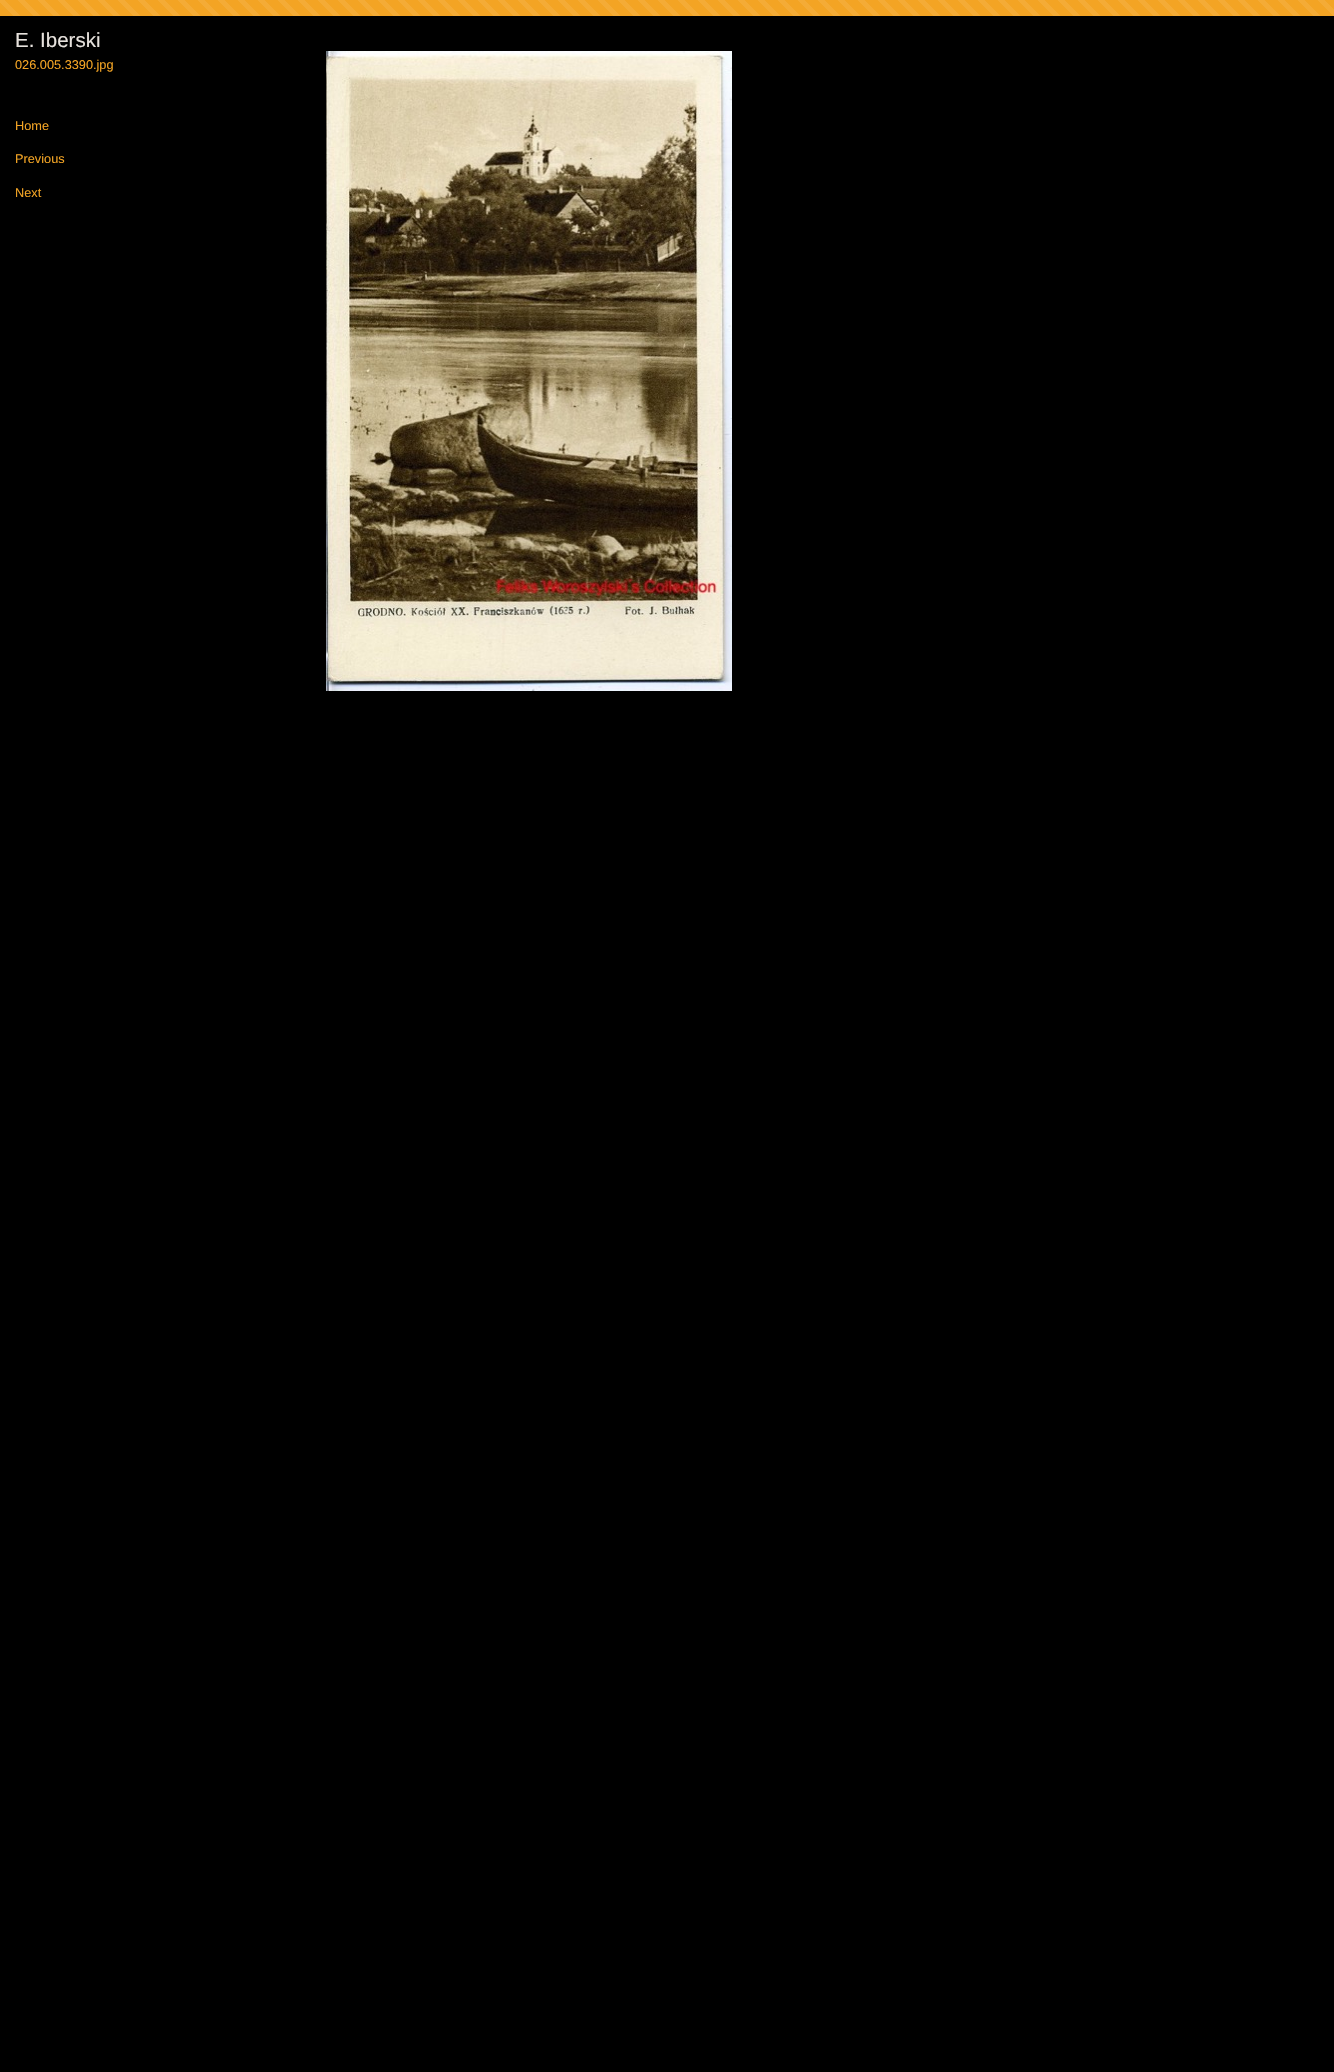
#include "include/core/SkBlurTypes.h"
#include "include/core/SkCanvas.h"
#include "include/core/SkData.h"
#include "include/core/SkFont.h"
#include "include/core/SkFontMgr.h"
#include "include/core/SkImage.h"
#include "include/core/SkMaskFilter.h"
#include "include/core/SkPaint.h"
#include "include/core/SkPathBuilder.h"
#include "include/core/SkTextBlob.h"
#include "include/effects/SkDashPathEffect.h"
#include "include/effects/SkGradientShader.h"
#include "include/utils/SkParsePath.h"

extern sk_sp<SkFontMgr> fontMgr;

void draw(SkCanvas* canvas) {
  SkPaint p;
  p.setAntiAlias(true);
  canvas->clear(SK_ColorBLACK);
  p.setColor(SkColorSetRGB(243, 164, 36));
  canvas->drawRect(SkRect::MakeLTRB(0, 0, 1334, 16), p);
  canvas->drawImageRect(SkImages::DeferredFromEncodedData(SkData::MakeFromFileName("images/1.png")), SkRect::MakeLTRB(0, 0, 1334, 16), SkSamplingOptions());
  canvas->drawImageRect(SkImages::DeferredFromEncodedData(SkData::MakeFromFileName("images/2.png")), SkRect::MakeLTRB(326, 51, 732, 691), SkSamplingOptions());
  SkFont font1(fontMgr->matchFamilyStyle("Liberation Sans", SkFontStyle::Normal()), 20.5f);
  font1.setSubpixel(true);
  p.setColor(SkColorSetRGB(231, 226, 221));
  canvas->drawString("E. Iberski", 15, 47, font1, p);
  SkFont font2(fontMgr->matchFamilyStyle("Liberation Sans", SkFontStyle::Normal()), 12.75f);
  font2.setSubpixel(true);
  p.setColor(SkColorSetRGB(243, 164, 36));
  canvas->drawString("026.005.3390.jpg", 15, 69, font2, p);
  canvas->drawString("Home", 15, 130, font2, p);
  canvas->drawString("Previous", 15, 163, font2, p);
  canvas->drawString("Next", 15, 197, font2, p);
}
